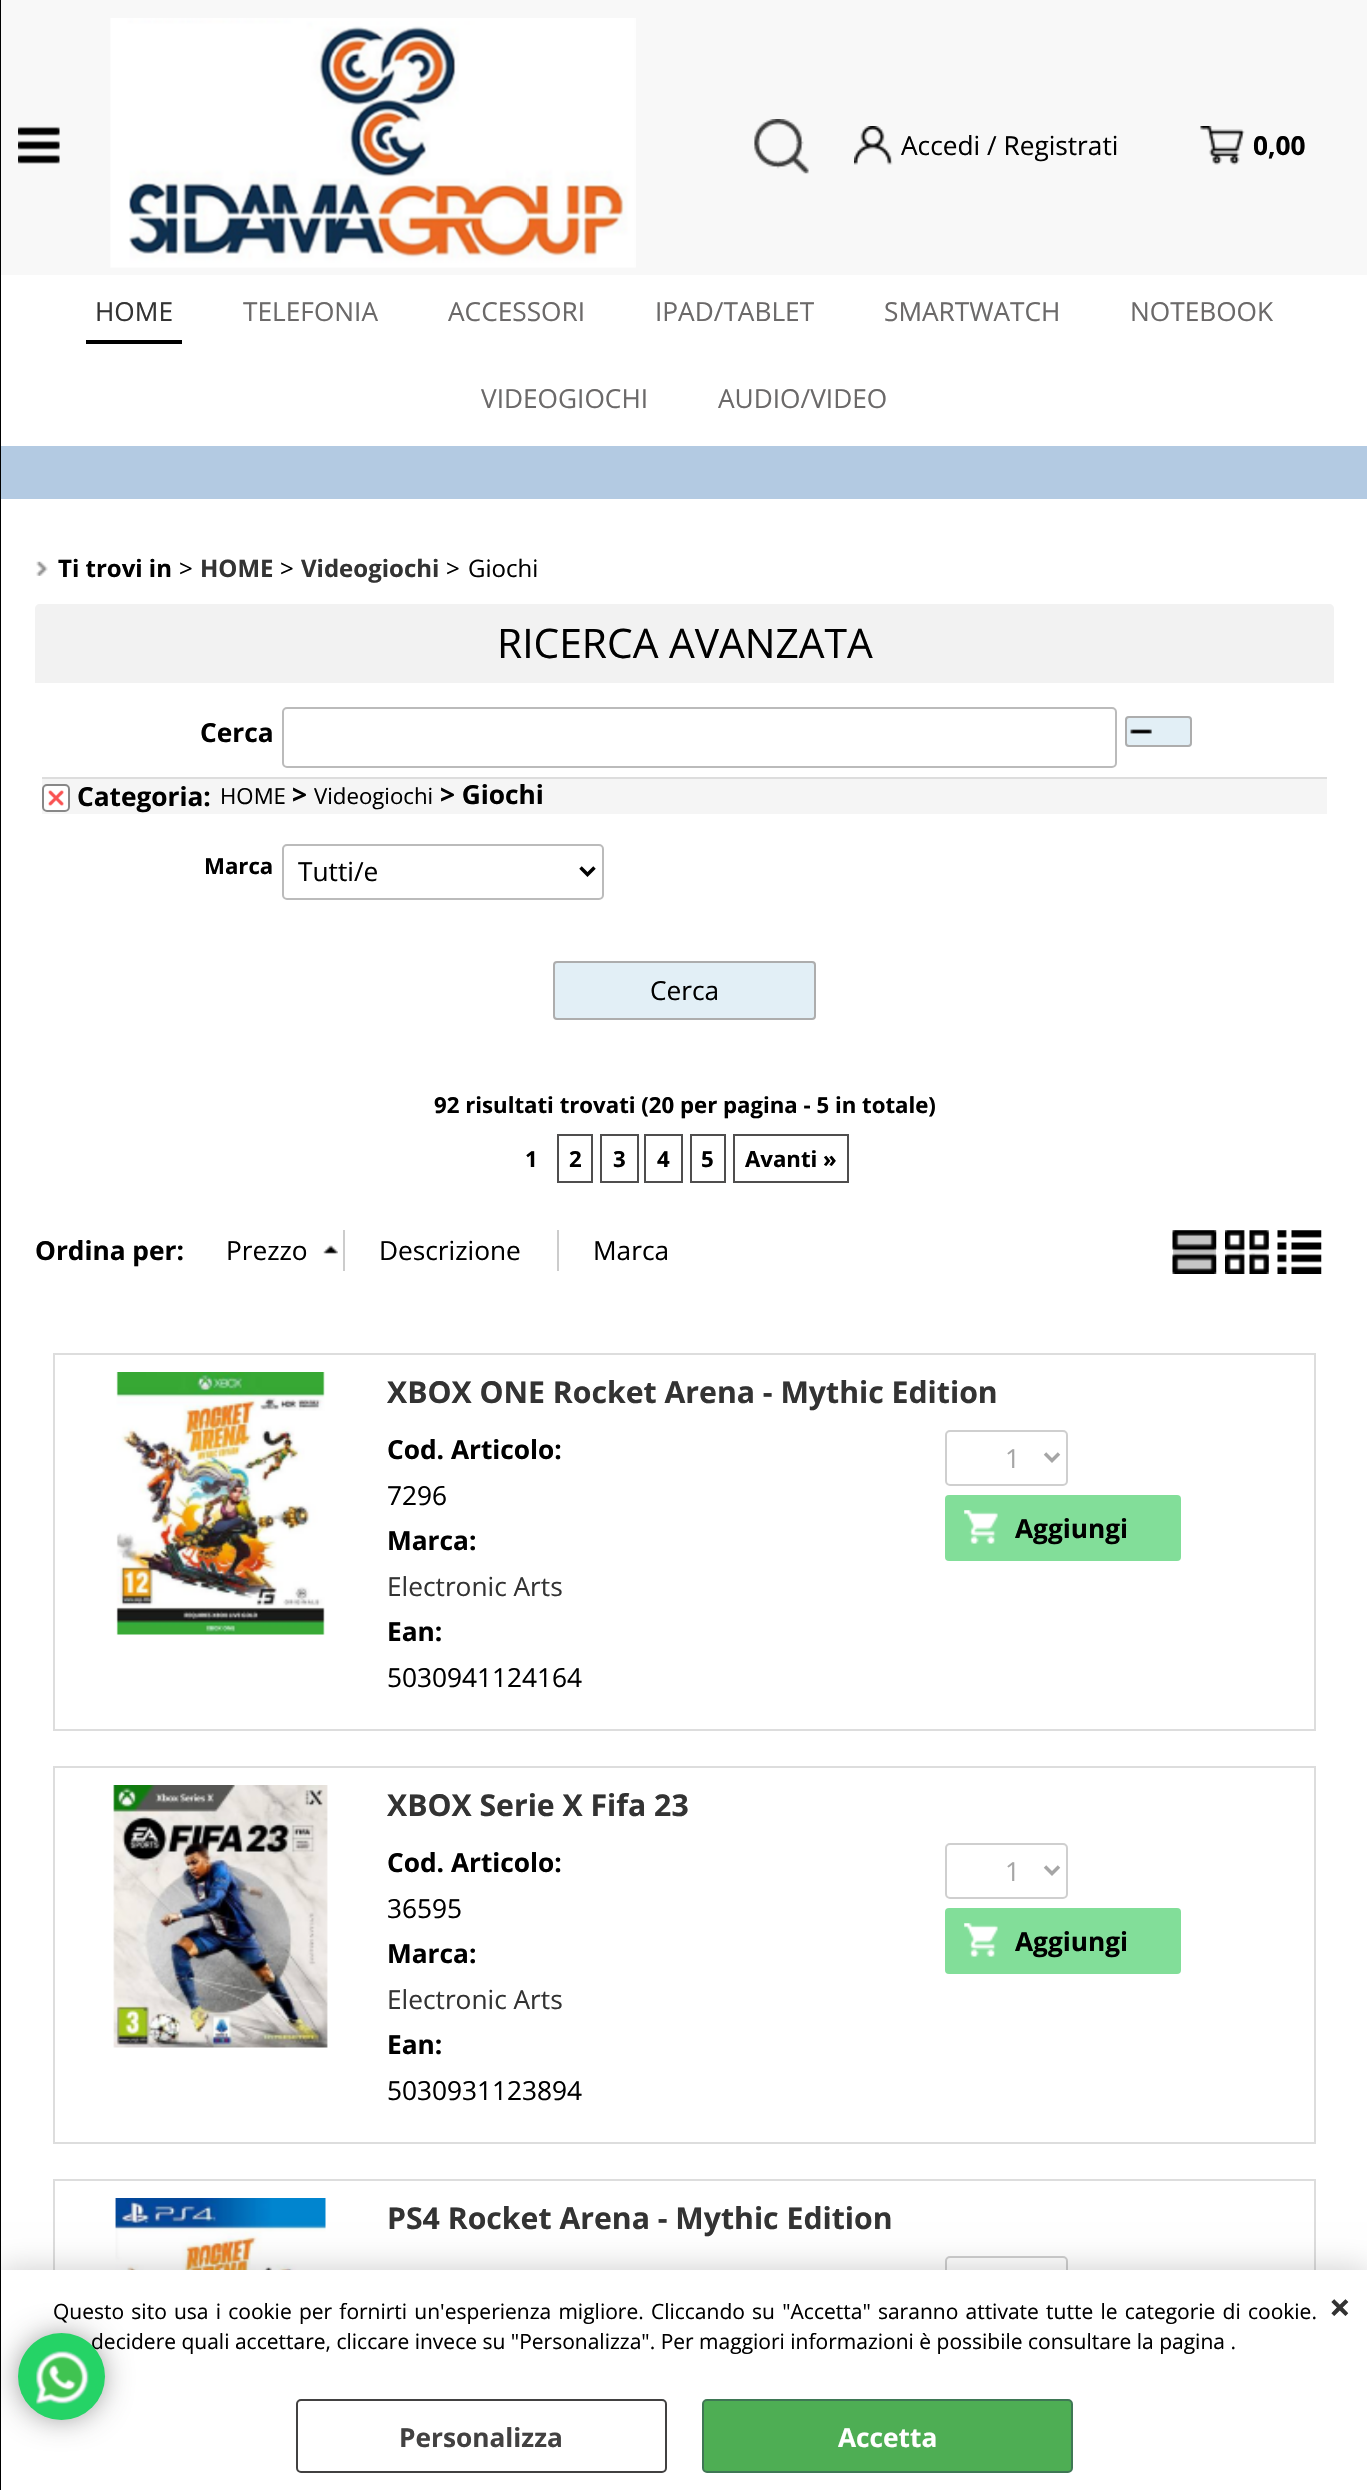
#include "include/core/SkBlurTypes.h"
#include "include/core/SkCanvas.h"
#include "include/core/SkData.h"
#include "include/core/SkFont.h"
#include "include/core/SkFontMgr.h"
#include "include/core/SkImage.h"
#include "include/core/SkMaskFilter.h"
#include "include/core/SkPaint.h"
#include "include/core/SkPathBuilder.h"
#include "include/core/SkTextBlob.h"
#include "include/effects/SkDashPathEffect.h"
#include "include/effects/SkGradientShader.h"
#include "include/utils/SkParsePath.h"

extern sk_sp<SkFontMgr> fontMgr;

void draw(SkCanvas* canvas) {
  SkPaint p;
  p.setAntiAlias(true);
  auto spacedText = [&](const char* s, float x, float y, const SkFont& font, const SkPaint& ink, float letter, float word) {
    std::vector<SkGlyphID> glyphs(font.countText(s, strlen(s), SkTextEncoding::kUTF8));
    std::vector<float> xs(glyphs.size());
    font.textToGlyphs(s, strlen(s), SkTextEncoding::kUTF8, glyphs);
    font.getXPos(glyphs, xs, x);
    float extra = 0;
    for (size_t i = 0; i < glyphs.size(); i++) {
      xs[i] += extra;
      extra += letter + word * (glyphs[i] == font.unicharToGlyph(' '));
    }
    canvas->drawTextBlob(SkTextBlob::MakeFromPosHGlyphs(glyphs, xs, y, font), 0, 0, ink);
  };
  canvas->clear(SK_ColorWHITE);
  p.setStyle(SkPaint::kStroke_Style);
  p.setStrokeWidth(2);
  p.setColor(SkColorSetRGB(221, 221, 221));
  canvas->drawRect(SkRect::MakeLTRB(54, 2180, 1315, 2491), p);
  p.setColor(SkColorSetRGB(207, 207, 207));
  canvas->drawRoundRect(SkRect::MakeLTRB(946, 2257, 1067, 2311), 4, 4, p);
  canvas->drawImageRect(SkImages::DeferredFromEncodedData(SkData::MakeFromFileName("images/16.png")), SkRect::MakeLTRB(115, 2198, 326, 2270), SkSamplingOptions());
  p.setStyle(SkPaint::kFill_Style);
  p.setColor(SkColorSetARGB(51, 0, 0, 0));
  p.setMaskFilter(SkMaskFilter::MakeBlur(kNormal_SkBlurStyle, 16));
  canvas->drawRect(SkRect::MakeLTRB(0, 2270, 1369, 2490), p);
  p.setMaskFilter(nullptr);
  p.setColor(SK_ColorWHITE);
  canvas->drawRect(SkRect::MakeLTRB(1, 2270, 1367, 2490), p);
  p.setColor(SkColorSetARGB(179, 0, 0, 0));
  p.setMaskFilter(SkMaskFilter::MakeBlur(kNormal_SkBlurStyle, 17.5f));
  canvas->drawRoundRect(SkRect::MakeLTRB(26, 2342, 96, 2412), 35, 35, p);
  p.setMaskFilter(nullptr);
  p.setColor(SK_ColorBLACK);
  canvas->drawRect(SkRect::MakeLTRB(0, 0, 1, 2490), p);
  p.setColor(SkColorSetRGB(248, 248, 248));
  canvas->drawRect(SkRect::MakeLTRB(1, 0, 1367, 275), p);
  canvas->drawImageRect(SkImages::DeferredFromEncodedData(SkData::MakeFromFileName("images/1.png")), SkRect::MakeLTRB(18, 126, 60, 164), SkSamplingOptions());
  canvas->drawImageRect(SkImages::DeferredFromEncodedData(SkData::MakeFromFileName("images/2.png")), SkRect::MakeLTRB(110, 18, 636, 268), SkSamplingOptions());
  canvas->drawImageRect(SkImages::DeferredFromEncodedData(SkData::MakeFromFileName("images/3.png")), SkRect::MakeLTRB(754, 119, 809, 174), SkSamplingOptions());
  canvas->drawImageRect(SkImages::DeferredFromEncodedData(SkData::MakeFromFileName("images/4.png")), SkRect::MakeLTRB(854, 126, 893, 165), SkSamplingOptions());
  canvas->drawImageRect(SkImages::DeferredFromEncodedData(SkData::MakeFromFileName("images/5.png")), SkRect::MakeLTRB(1200, 126, 1245, 165), SkSamplingOptions());
  p.setColor(SkColorSetRGB(179, 202, 226));
  canvas->drawRect(SkRect::MakeLTRB(1, 446, 1367, 499), p);
  p.setColor(SK_ColorBLACK);
  canvas->drawRect(SkRect::MakeLTRB(86, 340, 182, 344), p);
  canvas->drawImageRect(SkImages::DeferredFromEncodedData(SkData::MakeFromFileName("images/6.png")), SkRect::MakeLTRB(36, 561, 48, 576), SkSamplingOptions());
  p.setColor(SkColorSetRGB(242, 242, 242));
  canvas->drawPath(SkPathBuilder().moveTo(40, 604).lineTo(1329, 604).cubicTo(1332, 604, 1334, 606, 1334, 609).lineTo(1334, 683).lineTo(35, 683).lineTo(35, 609).cubicTo(35, 606, 37, 604, 40, 604).close().detach(), p);
  p.setStyle(SkPaint::kStroke_Style);
  p.setColor(SkColorSetRGB(187, 187, 187));
  canvas->drawRoundRect(SkRect::MakeLTRB(283, 708, 1116, 767), 4, 4, p);
  p.setStyle(SkPaint::kFill_Style);
  p.setColor(SkColorSetRGB(226, 239, 246));
  canvas->drawRoundRect(SkRect::MakeLTRB(1125, 716, 1192, 747), 4, 4, p);
  canvas->drawImageRect(SkImages::DeferredFromEncodedData(SkData::MakeFromFileName("images/7.png")), SkRect::MakeLTRB(1130, 729, 1152, 734), SkSamplingOptions());
  p.setStyle(SkPaint::kStroke_Style);
  p.setColor(SkColorSetRGB(173, 173, 173));
  canvas->drawRoundRect(SkRect::MakeLTRB(1126, 717, 1191, 746), 3, 3, p);
  p.setStyle(SkPaint::kFill_Style);
  p.setColor(SkColorSetRGB(221, 221, 221));
  canvas->drawRect(SkRect::MakeLTRB(42, 777, 1327, 779), p);
  p.setColor(SkColorSetRGB(245, 245, 245));
  canvas->drawRect(SkRect::MakeLTRB(42, 779, 1327, 814), p);
  p.setColor(SK_ColorWHITE);
  canvas->drawRoundRect(SkRect::MakeLTRB(42, 784, 70, 812), 5, 5, p);
  canvas->drawImageRect(SkImages::DeferredFromEncodedData(SkData::MakeFromFileName("images/8.png")), SkRect::MakeLTRB(48, 790, 64, 806), SkSamplingOptions());
  p.setStyle(SkPaint::kStroke_Style);
  p.setColor(SkColorSetRGB(136, 136, 136));
  canvas->drawRoundRect(SkRect::MakeLTRB(43, 785, 69, 811), 4, 4, p);
  p.setColor(SkColorSetRGB(187, 187, 187));
  canvas->drawRoundRect(SkRect::MakeLTRB(283, 845, 603, 899), 4, 4, p);
  p.setStrokeWidth(3.5f);
  p.setColor(SK_ColorBLACK);
  canvas->drawPath(SkPathBuilder().moveTo(580.5f, 867.5f).lineTo(587.5f, 874.5f).lineTo(594.5f, 867.5f).detach(), p);
  p.setStyle(SkPaint::kFill_Style);
  p.setColor(SkColorSetRGB(226, 239, 246));
  canvas->drawRoundRect(SkRect::MakeLTRB(554, 962, 815, 1019), 3, 3, p);
  p.setStyle(SkPaint::kStroke_Style);
  p.setStrokeWidth(2);
  p.setColor(SkColorSetRGB(173, 173, 173));
  canvas->drawRoundRect(SkRect::MakeLTRB(554, 962, 815, 1019), 3, 3, p);
  p.setColor(SkColorSetRGB(79, 78, 78));
  canvas->drawRect(SkRect::MakeLTRB(558, 1135, 592, 1182), p);
  canvas->drawRect(SkRect::MakeLTRB(601, 1135, 638, 1182), p);
  canvas->drawRect(SkRect::MakeLTRB(645, 1135, 682, 1182), p);
  canvas->drawRect(SkRect::MakeLTRB(691, 1135, 725, 1182), p);
  canvas->drawRect(SkRect::MakeLTRB(734, 1135, 848, 1182), p);
  canvas->drawImageRect(SkImages::DeferredFromEncodedData(SkData::MakeFromFileName("images/9.png")), SkRect::MakeLTRB(323, 1245, 338, 1254), SkSamplingOptions());
  p.setStyle(SkPaint::kFill_Style);
  p.setColor(SkColorSetRGB(204, 204, 204));
  canvas->drawRect(SkRect::MakeLTRB(343, 1230, 345, 1271), p);
  canvas->drawRect(SkRect::MakeLTRB(557, 1230, 559, 1271), p);
  p.setColor(SkColorSetRGB(198, 198, 198));
  canvas->drawRect(SkRect::MakeLTRB(1173, 1230, 1216, 1274), p);
  canvas->drawImageRect(SkImages::DeferredFromEncodedData(SkData::MakeFromFileName("images/10.png")), SkRect::MakeLTRB(1172, 1230, 1217, 1274), SkSamplingOptions());
  canvas->drawImageRect(SkImages::DeferredFromEncodedData(SkData::MakeFromFileName("images/11.png")), SkRect::MakeLTRB(1225, 1230, 1269, 1274), SkSamplingOptions());
  canvas->drawImageRect(SkImages::DeferredFromEncodedData(SkData::MakeFromFileName("images/12.png")), SkRect::MakeLTRB(1277, 1230, 1322, 1274), SkSamplingOptions());
  p.setStyle(SkPaint::kStroke_Style);
  p.setColor(SkColorSetRGB(221, 221, 221));
  canvas->drawRect(SkRect::MakeLTRB(54, 1354, 1315, 1730), p);
  canvas->drawImageRect(SkImages::DeferredFromEncodedData(SkData::MakeFromFileName("images/13.png")), SkRect::MakeLTRB(116, 1372, 325, 1635), SkSamplingOptions());
  p.setColor(SkColorSetRGB(207, 207, 207));
  canvas->drawRoundRect(SkRect::MakeLTRB(946, 1431, 1067, 1485), 4, 4, p);
  p.setStrokeWidth(3.5f);
  p.setColor(SkColorSetRGB(166, 166, 166));
  canvas->drawPath(SkPathBuilder().moveTo(1045, 1453.5f).lineTo(1052, 1460.5f).lineTo(1059, 1453.5f).detach(), p);
  p.setStyle(SkPaint::kFill_Style);
  p.setColor(SkColorSetRGB(130, 222, 153));
  canvas->drawRoundRect(SkRect::MakeLTRB(945, 1495, 1181, 1561), 4, 4, p);
  canvas->drawImageRect(SkImages::DeferredFromEncodedData(SkData::MakeFromFileName("images/14.png")), SkRect::MakeLTRB(964, 1510, 998, 1544), SkSamplingOptions());
  p.setStyle(SkPaint::kStroke_Style);
  p.setStrokeWidth(2);
  p.setColor(SkColorSetRGB(221, 221, 221));
  canvas->drawRect(SkRect::MakeLTRB(54, 1767, 1315, 2143), p);
  canvas->drawImageRect(SkImages::DeferredFromEncodedData(SkData::MakeFromFileName("images/15.png")), SkRect::MakeLTRB(113, 1785, 328, 2048), SkSamplingOptions());
  p.setColor(SkColorSetRGB(207, 207, 207));
  canvas->drawRoundRect(SkRect::MakeLTRB(946, 1844, 1067, 1898), 4, 4, p);
  p.setStrokeWidth(3.5f);
  p.setColor(SkColorSetRGB(166, 166, 166));
  canvas->drawPath(SkPathBuilder().moveTo(1045, 1866.5f).lineTo(1052, 1873.5f).lineTo(1059, 1866.5f).detach(), p);
  p.setStyle(SkPaint::kFill_Style);
  p.setColor(SkColorSetRGB(130, 222, 153));
  canvas->drawRoundRect(SkRect::MakeLTRB(945, 1908, 1181, 1974), 4, 4, p);
  canvas->drawImageRect(SkImages::DeferredFromEncodedData(SkData::MakeFromFileName("images/14.png")), SkRect::MakeLTRB(964, 1923, 998, 1957), SkSamplingOptions());
  p.setStyle(SkPaint::kStroke_Style);
  p.setStrokeWidth(2);
  p.setColor(SkColorSetRGB(66, 65, 65));
  canvas->drawRoundRect(SkRect::MakeLTRB(297, 2400, 666, 2472), 4, 4, p);
  p.setStyle(SkPaint::kFill_Style);
  p.setColor(SkColorSetRGB(78, 174, 84));
  canvas->drawRoundRect(SkRect::MakeLTRB(703, 2400, 1072, 2472), 4, 4, p);
  p.setStyle(SkPaint::kStroke_Style);
  p.setColor(SkColorSetRGB(63, 119, 85));
  canvas->drawRoundRect(SkRect::MakeLTRB(703, 2400, 1072, 2472), 4, 4, p);
  SkFont font1(fontMgr->matchFamilyStyle("Open Sans", SkFontStyle::Normal()), 26.25f);
  font1.setSubpixel(true);
  p.setStyle(SkPaint::kFill_Style);
  p.setColor(SK_ColorBLACK);
  canvas->drawString("Accedi / Registrati", 901, 155, font1, p);
  SkFont font2(fontMgr->matchFamilyStyle("Open Sans", SkFontStyle::Bold()), 26.25f);
  font2.setSubpixel(true);
  canvas->drawString("0,00", 1253, 155, font2, p);
  p.setColor(SkColorSetRGB(51, 51, 51));
  canvas->drawString("HOME", 95, 321, font1, p);
  p.setColor(SkColorSetRGB(107, 105, 105));
  canvas->drawString("TELEFONIA", 243, 321, font1, p);
  canvas->drawString("ACCESSORI", 448, 321, font1, p);
  canvas->drawString("IPAD/TABLET", 655, 321, font1, p);
  canvas->drawString("SMARTWATCH", 884, 321, font1, p);
  canvas->drawString("NOTEBOOK", 1130, 321, font1, p);
  canvas->drawString("VIDEOGIOCHI", 481, 408, font1, p);
  canvas->drawString("AUDIO/VIDEO", 718, 408, font1, p);
  SkFont font3(fontMgr->matchFamilyStyle("Open Sans", SkFontStyle::Bold()), 24);
  font3.setSubpixel(true);
  p.setColor(SK_ColorBLACK);
  canvas->drawString("Ti trovi in", 58, 577, font3, p);
  SkFont font4(fontMgr->matchFamilyStyle("Open Sans", SkFontStyle::Normal()), 24);
  font4.setSubpixel(true);
  canvas->drawString(">", 179, 577, font4, p);
  p.setColor(SkColorSetRGB(51, 51, 51));
  canvas->drawString("HOME", 200, 577, font3, p);
  p.setColor(SK_ColorBLACK);
  canvas->drawString(">", 280, 577, font4, p);
  p.setColor(SkColorSetRGB(51, 51, 51));
  canvas->drawString("Videogiochi", 301, 577, font3, p);
  p.setColor(SK_ColorBLACK);
  canvas->drawString(">", 446, 577, font4, p);
  canvas->drawString("Giochi", 468, 577, font4, p);
  SkFont font5(fontMgr->matchFamilyStyle("Open Sans", SkFontStyle::Normal()), 40.75f);
  font5.setSubpixel(true);
  canvas->drawString("RICERCA AVANZATA", 497, 658, font5, p);
  canvas->drawString("Cerca", 200, 742, font2, p);
  canvas->drawString("Categoria:", 77, 806, font2, p);
  SkFont font6(fontMgr->matchFamilyStyle("Open Sans", SkFontStyle::Normal()), 22.2f);
  font6.setSubpixel(true);
  canvas->drawString("HOME", 220, 804, font6, p);
  canvas->drawString(">", 292, 804, font2, p);
  canvas->drawString("Videogiochi", 314, 804, font6, p);
  canvas->drawString("> Giochi", 440, 804, font2, p);
  SkFont font7(fontMgr->matchFamilyStyle("Open Sans", SkFontStyle::Bold()), 22.2f);
  font7.setSubpixel(true);
  canvas->drawString("Marca", 204, 874, font7, p);
  canvas->drawString("Tutti/e", 298, 881, font1, p);
  canvas->drawString("Cerca", 650, 1000, font1, p);
  canvas->drawString("92 risultati trovati (20 per pagina - 5 in totale)", 434, 1113, font7, p);
  canvas->drawString("1", 525, 1167, font7, p);
  canvas->drawString("2", 569, 1167, font7, p);
  canvas->drawString("3", 613, 1167, font7, p);
  canvas->drawString("4", 657, 1167, font7, p);
  canvas->drawString("5", 701, 1167, font7, p);
  canvas->drawString("Avanti »", 745, 1167, font7, p);
  canvas->drawString("Ordina per:", 35, 1260, font2, p);
  canvas->drawString("Prezzo", 226, 1260, font1, p);
  canvas->drawString("Descrizione", 379, 1260, font1, p);
  canvas->drawString("Marca", 593, 1260, font1, p);
  SkFont font8(fontMgr->matchFamilyStyle("Open Sans", SkFontStyle::Bold()), 30.2f);
  font8.setSubpixel(true);
  p.setColor(SkColorSetRGB(51, 51, 51));
  canvas->drawString("XBOX ONE Rocket Arena - Mythic Edition", 387, 1403, font8, p);
  p.setColor(SK_ColorBLACK);
  canvas->drawString("Cod. Articolo:", 387, 1459, font2, p);
  canvas->drawString("7296", 387, 1505, font1, p);
  canvas->drawString("Marca:", 387, 1550, font2, p);
  p.setColor(SkColorSetRGB(51, 51, 51));
  canvas->drawString("Electronic Arts", 387, 1596, font1, p);
  p.setColor(SK_ColorBLACK);
  canvas->drawString("Ean:", 387, 1641, font2, p);
  canvas->drawString("5030941124164", 387, 1687, font1, p);
  p.setColor(SkColorSetRGB(166, 166, 166));
  canvas->drawString("1", 1005, 1468, font1, p);
  p.setColor(SK_ColorBLACK);
  canvas->drawString("Aggiungi", 1015, 1538, font2, p);
  p.setColor(SkColorSetRGB(51, 51, 51));
  canvas->drawString("XBOX Serie X Fifa 23", 387, 1816, font8, p);
  p.setColor(SK_ColorBLACK);
  canvas->drawString("Cod. Articolo:", 387, 1872, font2, p);
  canvas->drawString("36595", 387, 1918, font1, p);
  canvas->drawString("Marca:", 387, 1963, font2, p);
  p.setColor(SkColorSetRGB(51, 51, 51));
  canvas->drawString("Electronic Arts", 387, 2009, font1, p);
  p.setColor(SK_ColorBLACK);
  canvas->drawString("Ean:", 387, 2054, font2, p);
  canvas->drawString("5030931123894", 387, 2100, font1, p);
  p.setColor(SkColorSetRGB(166, 166, 166));
  canvas->drawString("1", 1005, 1881, font1, p);
  p.setColor(SK_ColorBLACK);
  canvas->drawString("Aggiungi", 1015, 1951, font2, p);
  p.setColor(SkColorSetRGB(51, 51, 51));
  canvas->drawString("PS4 Rocket Arena - Mythic Edition", 387, 2229, font8, p);
  SkFont font9(fontMgr->matchFamilyStyle("Open Sans", SkFontStyle::Normal()), 21);
  font9.setSubpixel(true);
  p.setColor(SK_ColorBLACK);
  spacedText("Questo sito usa i cookie per fornirti un'esperienza migliore. Cliccando su \"Accetta\" saranno attivate tutte le categorie di cookie.", 53, 2319, font9, p, 0, 1.75f);
  canvas->drawString("decidere quali accettare, cliccare invece su \"Personalizza\". Per maggiori informazioni è possibile consultare la pagina .", 91, 2349, font9, p);
  p.setColor(SkColorSetRGB(37, 211, 102));
  canvas->drawCircle(61.5f, 2376.5f, 43.5f, p);
  canvas->drawImageRect(SkImages::DeferredFromEncodedData(SkData::MakeFromFileName("images/17.png")), SkRect::MakeLTRB(36, 2351, 89, 2405), SkSamplingOptions());
  SkFont font10(fontMgr->matchFamilyStyle("Open Sans", SkFontStyle::Bold()), 38);
  font10.setSubpixel(true);
  p.setColor(SkColorSetRGB(51, 51, 51));
  canvas->drawString("×", 1329, 2321, font10, p);
  p.setColor(SkColorSetRGB(66, 65, 65));
  canvas->drawString("Personalizza", 399, 2447, font2, p);
  p.setColor(SK_ColorWHITE);
  canvas->drawString("Accetta", 838, 2447, font2, p);
}
